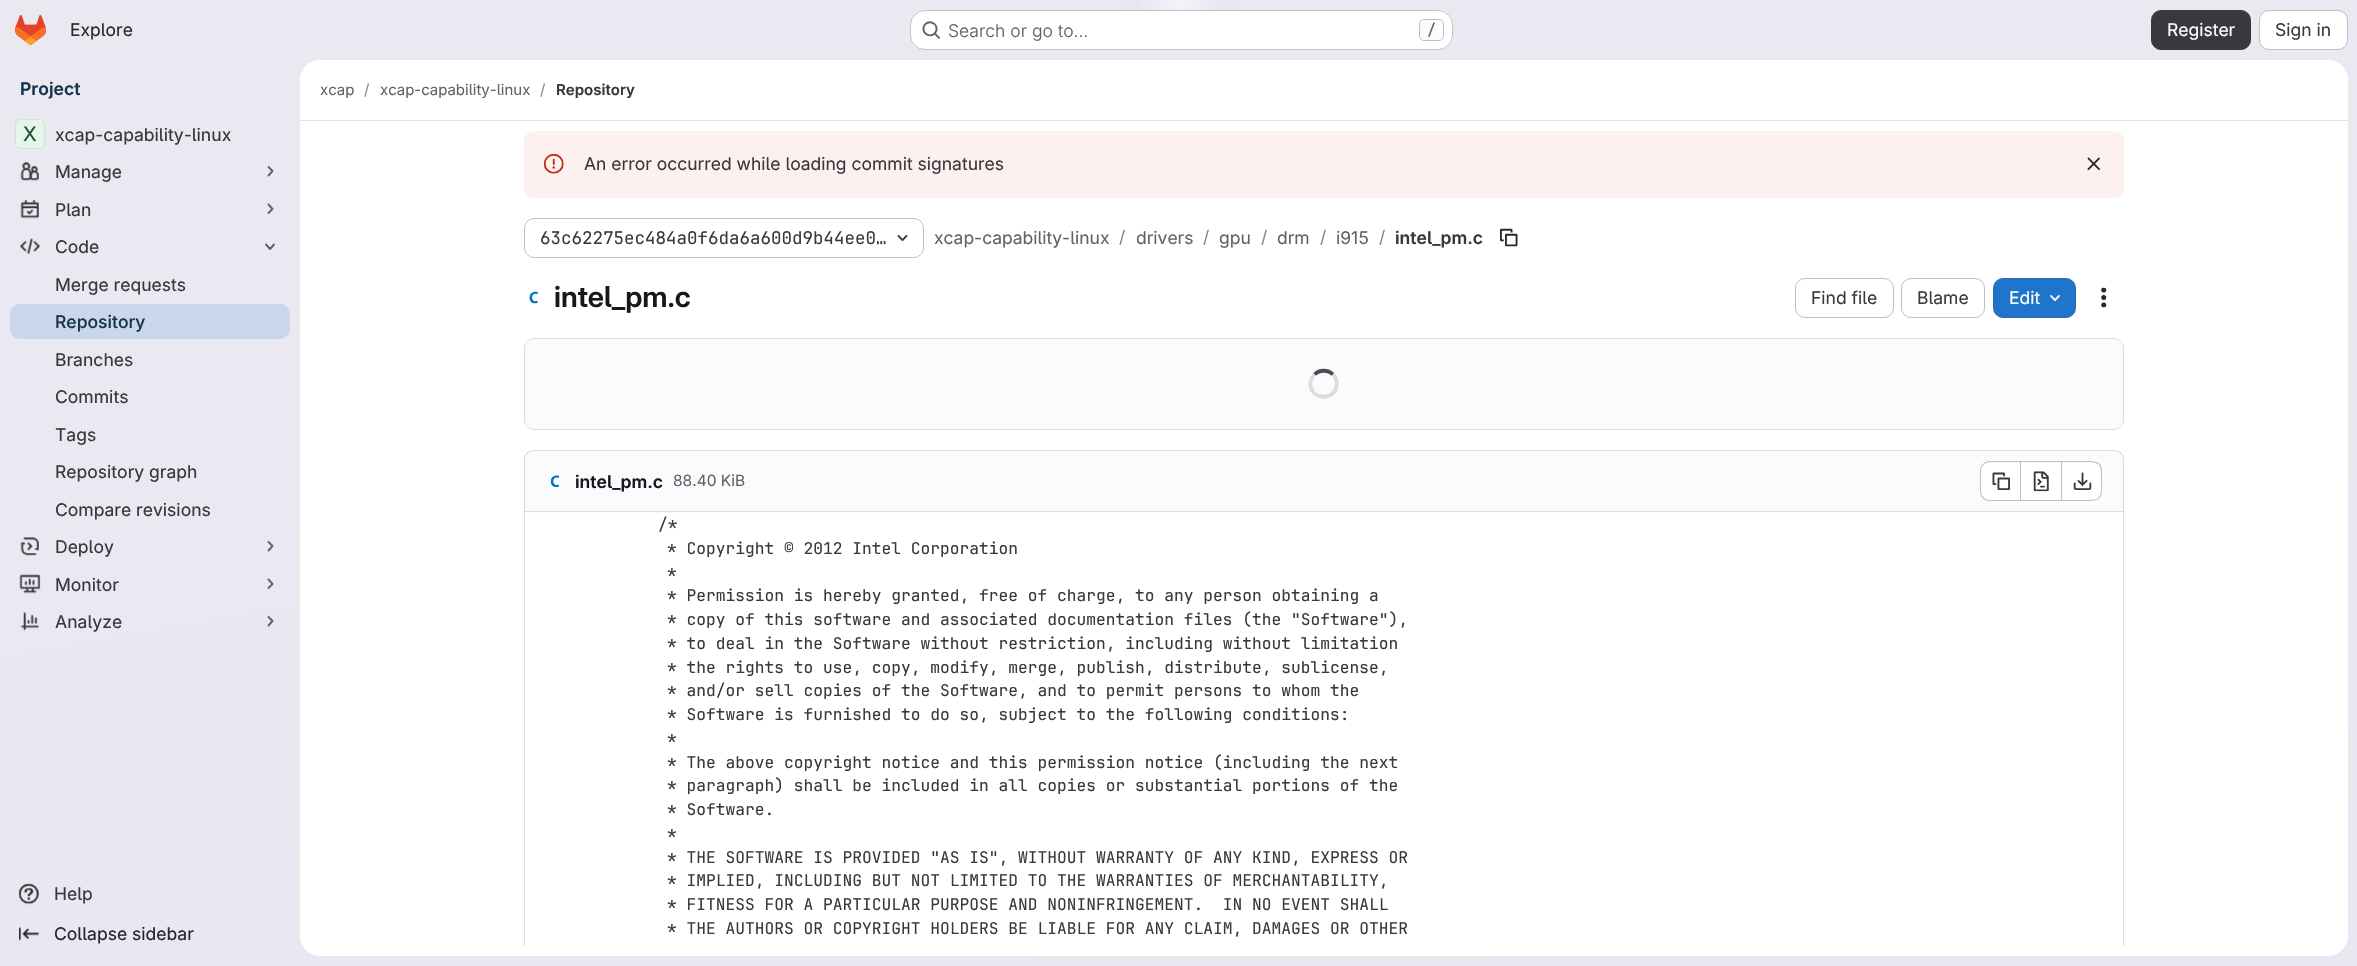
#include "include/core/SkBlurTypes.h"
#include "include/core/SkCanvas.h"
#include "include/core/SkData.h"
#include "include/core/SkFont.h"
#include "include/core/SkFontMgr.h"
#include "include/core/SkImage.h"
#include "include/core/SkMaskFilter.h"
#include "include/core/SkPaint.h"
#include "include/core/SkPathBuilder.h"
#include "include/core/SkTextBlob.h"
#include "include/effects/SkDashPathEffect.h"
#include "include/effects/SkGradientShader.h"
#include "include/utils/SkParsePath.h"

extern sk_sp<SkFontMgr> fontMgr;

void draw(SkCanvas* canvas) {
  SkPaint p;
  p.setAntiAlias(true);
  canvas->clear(SK_ColorWHITE);
  {
    const SkColor colors[] = {SkColorSetRGB(232, 230, 240), SkColorSetRGB(234, 233, 242)};
    const float stops[] = {0, 0.7f};
    const SkPoint ends[] = {{1297, 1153}, {1061, -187}};
    p.setShader(SkGradientShader::MakeLinear(ends, colors, stops, 2, SkTileMode::kClamp));
    p.setAlpha(255);
  }
  canvas->drawRect(SkRect::MakeLTRB(0, 0, 2357, 966), p);
  {
    const SkColor colors[] = {SkColorSetRGB(228, 226, 237), SkColorSetARGB(0, 228, 226, 237)};
    const float stops[] = {0, 0.07f};
    SkMatrix m = SkMatrix::Translate(1179, 0).preScale(1179, 966);
    p.setShader(SkGradientShader::MakeRadial({0, 0}, 1, colors, stops, 2, SkTileMode::kClamp, 0, &m));
    p.setAlpha(255);
  }
  canvas->drawRect(SkRect::MakeLTRB(1120, 0, 1238, 48), p);
  {
    const SkColor colors[] = {SkColorSetARGB(153, 255, 255, 255), SkColorSetARGB(0, 255, 255, 255)};
    const float stops[] = {0, 0.03f};
    p.setShader(SkGradientShader::MakeRadial({1179, 0}, 1524, colors, stops, 2, SkTileMode::kClamp));
    p.setAlpha(255);
  }
  canvas->drawRect(SkRect::MakeLTRB(1141, 0, 1217, 10), p);
  canvas->drawImageRect(SkImages::DeferredFromEncodedData(SkData::MakeFromFileName("images/1.png")), SkRect::MakeLTRB(15, 15, 46, 45), SkSamplingOptions());
  p.setShader(nullptr);
  p.setColor(SK_ColorWHITE);
  canvas->drawRoundRect(SkRect::MakeLTRB(910, 10, 1453, 50), 15, 15, p);
  p.setStyle(SkPaint::kStroke_Style);
  p.setStrokeWidth(1);
  p.setColor(SkColorSetARGB(61, 5, 5, 6));
  canvas->drawRoundRect(SkRect::MakeLTRB(910.5f, 10.5f, 1452.5f, 49.5f), 14.5f, 14.5f, p);
  canvas->drawImageRect(SkImages::DeferredFromEncodedData(SkData::MakeFromFileName("images/2.png")), SkRect::MakeLTRB(922, 21, 940, 39), SkSamplingOptions());
  p.setStyle(SkPaint::kFill_Style);
  p.setColor(SkColorSetRGB(251, 250, 253));
  canvas->drawRoundRect(SkRect::MakeLTRB(1419.5f, 19.5f, 1443.5f, 40.5f), 4.5f, 4.5f, p);
  p.setStyle(SkPaint::kStroke_Style);
  p.setColor(SkColorSetRGB(191, 191, 195));
  canvas->drawRoundRect(SkRect::MakeLTRB(1419.5f, 19.5f, 1443.5f, 40.5f), 4.5f, 4.5f, p);
  p.setStyle(SkPaint::kFill_Style);
  p.setColor(SkColorSetRGB(58, 56, 63));
  canvas->drawRoundRect(SkRect::MakeLTRB(2151.5f, 10.5f, 2250.5f, 49.5f), 9.5f, 9.5f, p);
  p.setStyle(SkPaint::kStroke_Style);
  canvas->drawRoundRect(SkRect::MakeLTRB(2151.5f, 10.5f, 2250.5f, 49.5f), 9.5f, 9.5f, p);
  p.setStyle(SkPaint::kFill_Style);
  p.setColor(SK_ColorWHITE);
  canvas->drawRoundRect(SkRect::MakeLTRB(2259.5f, 10.5f, 2347.5f, 49.5f), 9.5f, 9.5f, p);
  p.setStyle(SkPaint::kStroke_Style);
  p.setColor(SkColorSetRGB(191, 191, 195));
  canvas->drawRoundRect(SkRect::MakeLTRB(2259.5f, 10.5f, 2347.5f, 49.5f), 9.5f, 9.5f, p);
  p.setStyle(SkPaint::kFill_Style);
  p.setColor(SK_ColorWHITE);
  canvas->drawRoundRect(SkRect::MakeLTRB(15, 119, 45, 149), 5, 5, p);
  p.setColor(SkColorSetARGB(61, 145, 212, 168));
  canvas->drawRoundRect(SkRect::MakeLTRB(15, 119, 45, 149), 5, 5, p);
  p.setStyle(SkPaint::kStroke_Style);
  p.setColor(SkColorSetARGB(20, 5, 5, 6));
  canvas->drawRoundRect(SkRect::MakeLTRB(15.5f, 119.5f, 44.5f, 148.5f), 4.5f, 4.5f, p);
  canvas->drawImageRect(SkImages::DeferredFromEncodedData(SkData::MakeFromFileName("images/3.png")), SkRect::MakeLTRB(20, 162, 39, 181), SkSamplingOptions());
  p.setStrokeWidth(1.9f);
  p.setStrokeCap(SkPaint::kRound_Cap);
  p.setStrokeJoin(SkPaint::kRound_Join);
  p.setColor(SkColorSetRGB(98, 97, 104));
  canvas->drawPath(SkPathBuilder().moveTo(268.5f, 167).lineTo(272.5f, 171).lineTo(268.5f, 175.5f).detach(), p);
  canvas->drawImageRect(SkImages::DeferredFromEncodedData(SkData::MakeFromFileName("images/4.png")), SkRect::MakeLTRB(20, 199, 39, 219), SkSamplingOptions());
  canvas->drawPath(SkPathBuilder().moveTo(268.5f, 204.5f).lineTo(272.5f, 209).lineTo(268.5f, 213).detach(), p);
  canvas->drawImageRect(SkImages::DeferredFromEncodedData(SkData::MakeFromFileName("images/5.png")), SkRect::MakeLTRB(19, 238, 40, 255), SkSamplingOptions());
  canvas->drawPath(SkPathBuilder().moveTo(274, 244.5f).lineTo(270, 249).lineTo(266, 244.5f).detach(), p);
  p.setStyle(SkPaint::kFill_Style);
  p.setColor(SkColorSetRGB(201, 214, 235));
  canvas->drawRoundRect(SkRect::MakeLTRB(10, 304, 290, 339), 10, 10, p);
  canvas->drawImageRect(SkImages::DeferredFromEncodedData(SkData::MakeFromFileName("images/6.png")), SkRect::MakeLTRB(20, 537, 39, 556), SkSamplingOptions());
  p.setStyle(SkPaint::kStroke_Style);
  p.setColor(SkColorSetRGB(98, 97, 104));
  canvas->drawPath(SkPathBuilder().moveTo(268.5f, 542).lineTo(272.5f, 546).lineTo(268.5f, 550.5f).detach(), p);
  canvas->drawImageRect(SkImages::DeferredFromEncodedData(SkData::MakeFromFileName("images/7.png")), SkRect::MakeLTRB(19, 574, 41, 594), SkSamplingOptions());
  canvas->drawPath(SkPathBuilder().moveTo(268.5f, 579.5f).lineTo(272.5f, 584).lineTo(268.5f, 588).detach(), p);
  canvas->drawImageRect(SkImages::DeferredFromEncodedData(SkData::MakeFromFileName("images/8.png")), SkRect::MakeLTRB(20, 612, 39, 631), SkSamplingOptions());
  canvas->drawPath(SkPathBuilder().moveTo(268.5f, 617).lineTo(272.5f, 621).lineTo(268.5f, 625.5f).detach(), p);
  canvas->drawImageRect(SkImages::DeferredFromEncodedData(SkData::MakeFromFileName("images/9.png")), SkRect::MakeLTRB(19, 883, 39, 905), SkSamplingOptions());
  canvas->drawImageRect(SkImages::DeferredFromEncodedData(SkData::MakeFromFileName("images/10.png")), SkRect::MakeLTRB(19, 927, 39, 941), SkSamplingOptions());
  p.setStyle(SkPaint::kFill_Style);
  p.setColor(SK_ColorWHITE);
  canvas->drawRoundRect(SkRect::MakeLTRB(300, 60, 2348, 956), 20, 20, p);
  canvas->drawPath(SkPathBuilder().moveTo(320, 60).lineTo(2328, 60).cubicTo(2339, 60, 2348, 69, 2348, 80).lineTo(2348, 121).lineTo(300, 121).lineTo(300, 80).cubicTo(300, 69, 309, 60, 320, 60).close().detach(), p);
  p.setColor(SkColorSetRGB(225, 223, 236));
  canvas->drawRect(SkRect::MakeLTRB(300, 120, 2348, 121), p);
  p.setColor(SkColorSetRGB(252, 241, 239));
  canvas->drawRoundRect(SkRect::MakeLTRB(524, 131, 2124, 198), 10, 10, p);
  canvas->drawImageRect(SkImages::DeferredFromEncodedData(SkData::MakeFromFileName("images/11.png")), SkRect::MakeLTRB(543, 153, 564, 174), SkSamplingOptions());
  canvas->drawImageRect(SkImages::DeferredFromEncodedData(SkData::MakeFromFileName("images/12.png")), SkRect::MakeLTRB(2087, 157, 2100, 170), SkSamplingOptions());
  p.setStyle(SkPaint::kStroke_Style);
  p.setStrokeWidth(1);
  p.setStrokeCap(SkPaint::kButt_Cap);
  p.setStrokeJoin(SkPaint::kMiter_Join);
  p.setColor(SkColorSetRGB(191, 191, 195));
  canvas->drawRoundRect(SkRect::MakeLTRB(524.5f, 218.5f, 923.5f, 257.5f), 9.5f, 9.5f, p);
  canvas->drawImageRect(SkImages::DeferredFromEncodedData(SkData::MakeFromFileName("images/13.png")), SkRect::MakeLTRB(897, 235, 908, 241), SkSamplingOptions());
  canvas->drawImageRect(SkImages::DeferredFromEncodedData(SkData::MakeFromFileName("images/14.png")), SkRect::MakeLTRB(1500, 228, 1518, 247), SkSamplingOptions());
  canvas->drawImageRect(SkImages::DeferredFromEncodedData(SkData::MakeFromFileName("images/15.png")), SkRect::MakeLTRB(529, 291, 538, 304), SkSamplingOptions());
  canvas->drawRoundRect(SkRect::MakeLTRB(1795.5f, 278.5f, 1893.5f, 317.5f), 9.5f, 9.5f, p);
  canvas->drawRoundRect(SkRect::MakeLTRB(1901.5f, 278.5f, 1984.5f, 317.5f), 9.5f, 9.5f, p);
  p.setStyle(SkPaint::kFill_Style);
  p.setColor(SkColorSetRGB(31, 117, 203));
  canvas->drawRoundRect(SkRect::MakeLTRB(1993.5f, 278.5f, 2075.5f, 317.5f), 9.5f, 9.5f, p);
  p.setStyle(SkPaint::kStroke_Style);
  p.setColor(SkColorSetRGB(47, 104, 180));
  canvas->drawRoundRect(SkRect::MakeLTRB(1993.5f, 278.5f, 2075.5f, 317.5f), 9.5f, 9.5f, p);
  canvas->drawImageRect(SkImages::DeferredFromEncodedData(SkData::MakeFromFileName("images/16.png")), SkRect::MakeLTRB(2050, 295, 2060, 301), SkSamplingOptions());
  canvas->drawImageRect(SkImages::DeferredFromEncodedData(SkData::MakeFromFileName("images/17.png")), SkRect::MakeLTRB(2101, 287, 2107, 308), SkSamplingOptions());
  p.setStyle(SkPaint::kFill_Style);
  p.setColor(SkColorSetRGB(251, 250, 253));
  canvas->drawRoundRect(SkRect::MakeLTRB(524.5f, 338.5f, 2123.5f, 429.5f), 9.5f, 9.5f, p);
  p.setStyle(SkPaint::kStroke_Style);
  p.setColor(SkColorSetRGB(220, 220, 222));
  canvas->drawRoundRect(SkRect::MakeLTRB(524.5f, 338.5f, 2123.5f, 429.5f), 9.5f, 9.5f, p);
  p.setStrokeWidth(3.8f);
  p.setColor(SkColorSetRGB(76, 75, 81));
  canvas->drawPath(SkPathBuilder().moveTo(1314.5f, 374.5f).cubicTo(1319.5f, 369.5f, 1328, 369.5f, 1333, 374.5f).detach(), p);
  p.setColor(SkColorSetRGB(220, 220, 222));
  canvas->drawPath(SkPathBuilder().moveTo(1333, 374.5f).cubicTo(1336, 377.5f, 1337.5f, 382, 1336.5f, 386.5f).cubicTo(1333.5f, 401.5f, 1310.5f, 399.5f, 1310.5f, 384).cubicTo(1310.5f, 380.5f, 1312, 377, 1314.5f, 374.5f).detach(), p);
  canvas->save();
  canvas->clipRect(SkRect::MakeLTRB(300, 121, 2348, 946));
  p.setStyle(SkPaint::kFill_Style);
  canvas->drawPath(SkPathBuilder().moveTo(534, 450).cubicTo(528, 450, 524, 454, 524, 460).lineTo(524, 956).lineTo(525, 956).lineTo(525, 460).cubicTo(525, 455, 529, 451, 534, 451).lineTo(2114, 451).cubicTo(2119, 451, 2123, 455, 2123, 460).lineTo(2123, 956).lineTo(2124, 956).lineTo(2124, 460).cubicTo(2124, 454, 2120, 450, 2114, 450).close().detach(), p);
  canvas->restore();
  p.setColor(SkColorSetRGB(251, 250, 253));
  canvas->drawPath(SkPathBuilder().moveTo(534, 451).lineTo(2114, 451).cubicTo(2119, 451, 2123, 455, 2123, 460).lineTo(2123, 513).lineTo(525, 513).lineTo(525, 460).cubicTo(525, 455, 529, 451, 534, 451).close().detach(), p);
  p.setColor(SkColorSetRGB(220, 220, 222));
  canvas->drawRect(SkRect::MakeLTRB(525, 511, 2123, 512), p);
  canvas->drawImageRect(SkImages::DeferredFromEncodedData(SkData::MakeFromFileName("images/18.png")), SkRect::MakeLTRB(550, 475, 560, 487), SkSamplingOptions());
  p.setColor(SK_ColorWHITE);
  canvas->drawPath(SkPathBuilder().moveTo(1990, 463).lineTo(2020, 463).lineTo(2020, 500).lineTo(1990, 500).cubicTo(1985, 500, 1981, 496, 1981, 491).lineTo(1981, 472).cubicTo(1981, 467, 1985, 463, 1990, 463).close().detach(), p);
  p.setColor(SkColorSetRGB(191, 191, 195));
  canvas->drawPath(SkPathBuilder(SkPathFillType::kEvenOdd).moveTo(1990, 461).lineTo(2020, 461).lineTo(2020, 501).lineTo(1990, 501).cubicTo(1984, 501, 1980, 497, 1980, 491).lineTo(1980, 471).cubicTo(1980, 466, 1984, 461, 1990, 461).close().moveTo(1990, 462).lineTo(2020, 462).lineTo(2020, 500).lineTo(1990, 500).cubicTo(1985, 500, 1981, 496, 1981, 491).lineTo(1981, 471).cubicTo(1981, 466, 1985, 462, 1990, 462).close().detach(), p);
  canvas->drawImageRect(SkImages::DeferredFromEncodedData(SkData::MakeFromFileName("images/19.png")), SkRect::MakeLTRB(1992, 472, 2010, 490), SkSamplingOptions());
  p.setColor(SK_ColorWHITE);
  canvas->drawRect(SkRect::MakeLTRB(2021, 463, 2061, 500), p);
  p.setColor(SkColorSetRGB(191, 191, 195));
  canvas->drawRect(SkRect::MakeLTRB(2021, 461, 2061, 462), p);
  canvas->drawRect(SkRect::MakeLTRB(2021, 500, 2061, 501), p);
  canvas->drawRect(SkRect::MakeLTRB(2020, 461, 2021, 501), p);
  canvas->drawImageRect(SkImages::DeferredFromEncodedData(SkData::MakeFromFileName("images/20.png")), SkRect::MakeLTRB(2033, 471, 2049, 492), SkSamplingOptions());
  p.setColor(SK_ColorWHITE);
  canvas->drawPath(SkPathBuilder().moveTo(2063, 463).lineTo(2092, 463).cubicTo(2097, 463, 2101, 467, 2101, 472).lineTo(2101, 491).cubicTo(2101, 496, 2097, 500, 2092, 500).lineTo(2063, 500).close().detach(), p);
  p.setColor(SkColorSetRGB(191, 191, 195));
  canvas->drawPath(SkPathBuilder(SkPathFillType::kEvenOdd).moveTo(2062, 461).lineTo(2088, 461).cubicTo(2104, 461, 2102, 467, 2102, 481).cubicTo(2102, 495, 2104, 501, 2088, 501).lineTo(2062, 501).close().moveTo(2062, 462).lineTo(2088, 462).cubicTo(2103, 462, 2101, 468, 2101, 481).cubicTo(2101, 495, 2103, 500, 2088, 500).lineTo(2062, 500).close().detach(), p);
  canvas->drawRect(SkRect::MakeLTRB(2061, 461, 2062, 501), p);
  canvas->drawImageRect(SkImages::DeferredFromEncodedData(SkData::MakeFromFileName("images/21.png")), SkRect::MakeLTRB(2073, 472, 2092, 490), SkSamplingOptions());
  SkFont font1(fontMgr->matchFamilyStyle("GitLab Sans", SkFontStyle::Normal()), 17.5f);
  font1.setSubpixel(true);
  p.setColor(SkColorSetRGB(40, 39, 45));
  canvas->drawString("Explore", 70, 36, font1, p);
  SkFont font2(fontMgr->matchFamilyStyle("GitLab Sans", SkFontStyle(300, SkFontStyle::kNormal_Width, SkFontStyle::kUpright_Slant)), 17.5f);
  font2.setSubpixel(true);
  p.setColor(SkColorSetRGB(98, 97, 104));
  canvas->drawString("Search or go to…", 948, 37, font2, p);
  SkFont font3(fontMgr->matchFamilyStyle("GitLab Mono", SkFontStyle(500, SkFontStyle::kNormal_Width, SkFontStyle::kUpright_Slant)), 15);
  font3.setSubpixel(true);
  canvas->drawString("/", 1427, 35, font3, p);
  p.setColor(SK_ColorWHITE);
  canvas->drawString("Register", 2167, 36, font1, p);
  p.setColor(SkColorSetRGB(58, 56, 63));
  canvas->drawString("Sign in", 2275, 36, font1, p);
  SkFont font4(fontMgr->matchFamilyStyle("GitLab Sans", SkFontStyle(600, SkFontStyle::kNormal_Width, SkFontStyle::kUpright_Slant)), 17.5f);
  font4.setSubpixel(true);
  p.setColor(SkColorSetRGB(24, 51, 78));
  canvas->drawString("Project", 20, 95, font4, p);
  SkFont font5(fontMgr->matchFamilyStyle("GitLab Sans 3", SkFontStyle::Normal()), 20);
  font5.setSubpixel(true);
  p.setColor(SkColorSetRGB(34, 81, 49));
  canvas->drawString("X", 23, 141, font5, p);
  SkFont font6(fontMgr->matchFamilyStyle("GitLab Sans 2", SkFontStyle::Normal()), 17.5f);
  font6.setSubpixel(true);
  p.setColor(SkColorSetRGB(58, 56, 63));
  canvas->drawString("xcap-capability-linux", 55, 141, font6, p);
  canvas->drawString("Manage", 55, 178, font6, p);
  canvas->drawString("Plan", 55, 216, font6, p);
  canvas->drawString("Code", 55, 253, font6, p);
  canvas->drawString("Merge requests", 55, 291, font6, p);
  SkFont font7(fontMgr->matchFamilyStyle("GitLab Sans", SkFontStyle(500, SkFontStyle::kNormal_Width, SkFontStyle::kUpright_Slant)), 17.5f);
  font7.setSubpixel(true);
  p.setColor(SkColorSetRGB(24, 51, 78));
  canvas->drawString("Repository", 55, 328, font7, p);
  p.setColor(SkColorSetRGB(58, 56, 63));
  canvas->drawString("Branches", 55, 366, font6, p);
  canvas->drawString("Commits", 55, 403, font6, p);
  canvas->drawString("Tags", 55, 441, font6, p);
  canvas->drawString("Repository graph", 55, 478, font6, p);
  canvas->drawString("Compare revisions", 55, 516, font6, p);
  canvas->drawString("Deploy", 55, 553, font6, p);
  canvas->drawString("Monitor", 55, 591, font6, p);
  canvas->drawString("Analyze", 55, 628, font6, p);
  canvas->drawString("Help", 54, 900, font6, p);
  p.setColor(SkColorSetRGB(40, 39, 45));
  canvas->drawString("Collapse sidebar", 54, 940, font6, p);
  SkFont font8(fontMgr->matchFamilyStyle("GitLab Sans", SkFontStyle::Normal()), 15);
  font8.setSubpixel(true);
  p.setColor(SkColorSetRGB(98, 97, 104));
  canvas->drawString("xcap", 320, 95, font8, p);
  p.setColor(SkColorSetRGB(137, 136, 141));
  canvas->drawString("/", 364, 95, font8, p);
  p.setColor(SkColorSetRGB(98, 97, 104));
  canvas->drawString("xcap-capability-linux", 380, 95, font8, p);
  p.setColor(SkColorSetRGB(137, 136, 141));
  canvas->drawString("/", 540, 95, font8, p);
  SkFont font9(fontMgr->matchFamilyStyle("GitLab Sans", SkFontStyle(600, SkFontStyle::kNormal_Width, SkFontStyle::kUpright_Slant)), 15);
  font9.setSubpixel(true);
  p.setColor(SkColorSetRGB(58, 56, 63));
  canvas->drawString("Repository", 556, 95, font9, p);
  canvas->drawString("An error occurred while loading commit signatures", 584, 170, font1, p);
  SkFont font10(fontMgr->matchFamilyStyle("GitLab Mono", SkFontStyle::Normal()), 17.5f);
  font10.setSubpixel(true);
  canvas->drawString("63c62275ec484a0f6da6a600d9b44ee0…", 540, 244, font10, p);
  p.setColor(SkColorSetRGB(98, 97, 104));
  canvas->drawString("xcap-capability-linux", 934, 244, font1, p);
  p.setColor(SkColorSetRGB(137, 136, 141));
  canvas->drawString("/", 1119, 243, font1, p);
  p.setColor(SkColorSetRGB(98, 97, 104));
  canvas->drawString("drivers", 1136, 244, font1, p);
  p.setColor(SkColorSetRGB(137, 136, 141));
  canvas->drawString("/", 1203, 243, font1, p);
  p.setColor(SkColorSetRGB(98, 97, 104));
  canvas->drawString("gpu", 1219, 244, font1, p);
  p.setColor(SkColorSetRGB(137, 136, 141));
  canvas->drawString("/", 1261, 243, font1, p);
  p.setColor(SkColorSetRGB(98, 97, 104));
  canvas->drawString("drm", 1277, 244, font1, p);
  p.setColor(SkColorSetRGB(137, 136, 141));
  canvas->drawString("/", 1320, 243, font1, p);
  p.setColor(SkColorSetRGB(98, 97, 104));
  canvas->drawString("i915", 1336, 244, font1, p);
  p.setColor(SkColorSetRGB(137, 136, 141));
  canvas->drawString("/", 1379, 243, font1, p);
  p.setColor(SkColorSetRGB(58, 56, 63));
  canvas->drawString("intel_pm.c", 1395, 244, font4, p);
  SkFont font11(fontMgr->matchFamilyStyle("GitLab Sans 2", SkFontStyle(600, SkFontStyle::kNormal_Width, SkFontStyle::kUpright_Slant)), 28.75f);
  font11.setSubpixel(true);
  p.setColor(SkColorSetRGB(24, 23, 29));
  canvas->drawString("intel_pm.c", 554, 307, font11, p);
  p.setColor(SkColorSetRGB(58, 56, 63));
  canvas->drawString("Find file", 1811, 304, font1, p);
  canvas->drawString("Blame", 1917, 304, font1, p);
  p.setColor(SK_ColorWHITE);
  canvas->drawString("Edit", 2009, 304, font1, p);
  p.setColor(SkColorSetRGB(24, 23, 29));
  canvas->drawString("intel_pm.c", 575, 488, font4, p);
  SkFont font12(fontMgr->matchFamilyStyle("GitLab Sans", SkFontStyle::Normal()), 15.5f);
  font12.setSubpixel(true);
  p.setColor(SkColorSetRGB(98, 97, 104));
  canvas->drawString("88.40 KiB", 673, 486, font12, p);
  SkFont font13(fontMgr->matchFamilyStyle("GitLab Mono", SkFontStyle::Normal()), 16.25f);
  font13.setSubpixel(true);
  p.setColor(SkColorSetRGB(58, 56, 63));
  canvas->drawString("/*", 658, 530, font13, p);
  canvas->drawString("* Copyright © 2012 Intel Corporation", 667, 554, font13, p);
  canvas->drawString("*", 667, 578, font13, p);
  canvas->drawString("* Permission is hereby granted, free of charge, to any person obtaining a", 667, 601, font13, p);
  canvas->drawString("* copy of this software and associated documentation files (the \"Software\"),", 667, 625, font13, p);
  canvas->drawString("* to deal in the Software without restriction, including without limitation", 667, 649, font13, p);
  canvas->drawString("* the rights to use, copy, modify, merge, publish, distribute, sublicense,", 667, 673, font13, p);
  canvas->drawString("* and/or sell copies of the Software, and to permit persons to whom the", 667, 696, font13, p);
  canvas->drawString("* Software is furnished to do so, subject to the following conditions:", 667, 720, font13, p);
  canvas->drawString("*", 667, 744, font13, p);
  canvas->drawString("* The above copyright notice and this permission notice (including the next", 667, 768, font13, p);
  canvas->drawString("* paragraph) shall be included in all copies or substantial portions of the", 667, 791, font13, p);
  canvas->drawString("* Software.", 667, 815, font13, p);
  canvas->drawString("*", 667, 839, font13, p);
  canvas->drawString("* THE SOFTWARE IS PROVIDED \"AS IS\", WITHOUT WARRANTY OF ANY KIND, EXPRESS OR", 667, 863, font13, p);
  canvas->drawString("* IMPLIED, INCLUDING BUT NOT LIMITED TO THE WARRANTIES OF MERCHANTABILITY,", 667, 886, font13, p);
  canvas->drawString("* FITNESS FOR A PARTICULAR PURPOSE AND NONINFRINGEMENT.  IN NO EVENT SHALL", 667, 910, font13, p);
  canvas->drawString("* THE AUTHORS OR COPYRIGHT HOLDERS BE LIABLE FOR ANY CLAIM, DAMAGES OR OTHER", 667, 934, font13, p);
}
